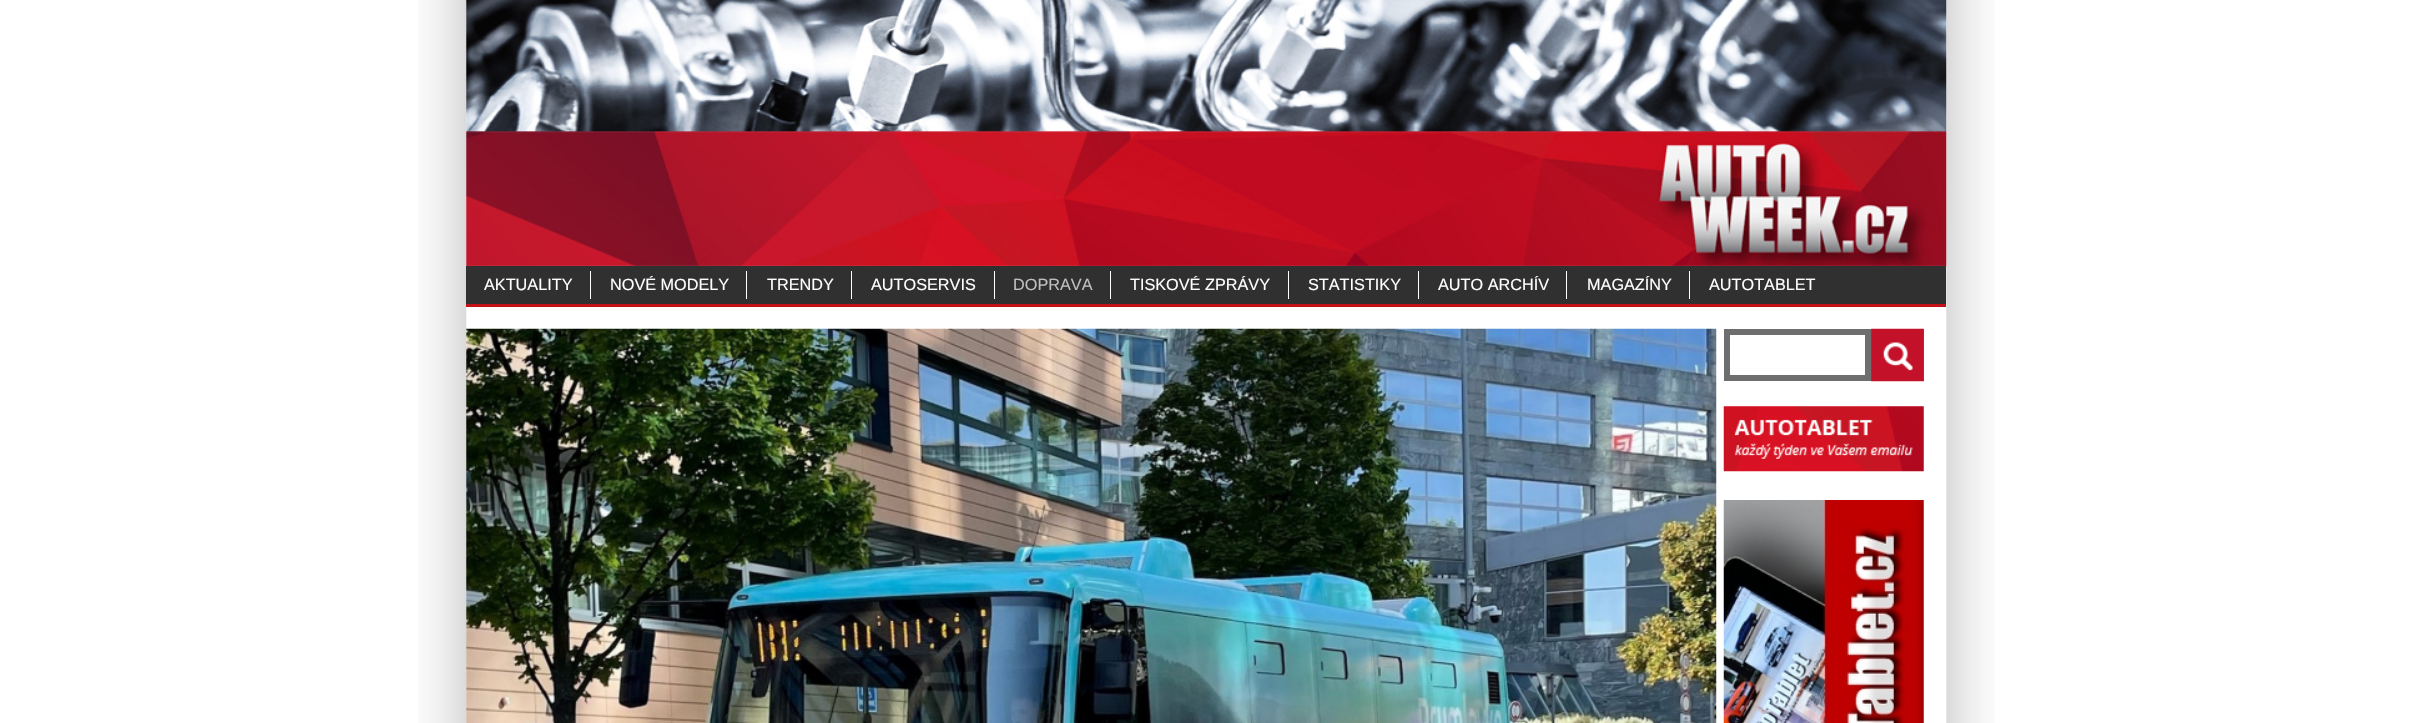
#include "include/core/SkBlurTypes.h"
#include "include/core/SkCanvas.h"
#include "include/core/SkData.h"
#include "include/core/SkFont.h"
#include "include/core/SkFontMgr.h"
#include "include/core/SkImage.h"
#include "include/core/SkMaskFilter.h"
#include "include/core/SkPaint.h"
#include "include/core/SkPathBuilder.h"
#include "include/core/SkTextBlob.h"
#include "include/effects/SkDashPathEffect.h"
#include "include/effects/SkGradientShader.h"
#include "include/utils/SkParsePath.h"

extern sk_sp<SkFontMgr> fontMgr;

void draw(SkCanvas* canvas) {
  SkPaint p;
  p.setAntiAlias(true);
  canvas->clear(SK_ColorWHITE);
  canvas->drawImageRect(SkImages::DeferredFromEncodedData(SkData::MakeFromFileName("images/1.png")), SkRect::MakeLTRB(418, 0, 1995, 723), SkSamplingOptions());
  canvas->drawImageRect(SkImages::DeferredFromEncodedData(SkData::MakeFromFileName("images/2.png")), SkRect::MakeLTRB(466, 0, 1947, 267), SkSamplingOptions());
  p.setColor(SkColorSetRGB(48, 48, 48));
  canvas->drawRect(SkRect::MakeLTRB(466, 266, 1946, 304), p);
  p.setColor(SkColorSetRGB(194, 18, 24));
  canvas->drawRect(SkRect::MakeLTRB(466, 304, 1946, 307), p);
  p.setColor(SK_ColorWHITE);
  canvas->drawRect(SkRect::MakeLTRB(590, 271, 591, 299), p);
  canvas->drawRect(SkRect::MakeLTRB(746, 271, 747, 299), p);
  canvas->drawRect(SkRect::MakeLTRB(851, 271, 852, 299), p);
  canvas->drawRect(SkRect::MakeLTRB(994, 271, 995, 299), p);
  canvas->drawRect(SkRect::MakeLTRB(1110, 271, 1111, 299), p);
  canvas->drawRect(SkRect::MakeLTRB(1288, 271, 1289, 299), p);
  canvas->drawRect(SkRect::MakeLTRB(1418, 271, 1419, 299), p);
  canvas->drawRect(SkRect::MakeLTRB(1566, 271, 1567, 299), p);
  canvas->drawRect(SkRect::MakeLTRB(1689, 271, 1690, 299), p);
  canvas->drawImageRect(SkImages::DeferredFromEncodedData(SkData::MakeFromFileName("images/3.png")), SkRect::MakeLTRB(466, 328, 1717, 723), SkSamplingOptions());
  p.setColor(SkColorSetRGB(110, 110, 110));
  canvas->drawRect(SkRect::MakeLTRB(1724, 329, 1924, 381), p);
  p.setColor(SK_ColorWHITE);
  canvas->drawRect(SkRect::MakeLTRB(1730, 335, 1865, 375), p);
  canvas->drawImageRect(SkImages::DeferredFromEncodedData(SkData::MakeFromFileName("images/4.png")), SkRect::MakeLTRB(1871, 328, 1924, 382), SkSamplingOptions());
  canvas->drawImageRect(SkImages::DeferredFromEncodedData(SkData::MakeFromFileName("images/5.png")), SkRect::MakeLTRB(1723, 406, 1924, 472), SkSamplingOptions());
  canvas->drawImageRect(SkImages::DeferredFromEncodedData(SkData::MakeFromFileName("images/6.png")), SkRect::MakeLTRB(1723, 500, 1924, 723), SkSamplingOptions());
  SkFont font1(fontMgr->matchFamilyStyle("Liberation Sans", SkFontStyle::Normal()), 16.25f);
  font1.setSubpixel(true);
  canvas->drawString("AKTUALITY", 484, 290, font1, p);
  canvas->drawString("NOVÉ MODELY", 610, 290, font1, p);
  canvas->drawString("TRENDY", 767, 290, font1, p);
  canvas->drawString("AUTOSERVIS", 871, 290, font1, p);
  p.setColor(SkColorSetRGB(192, 192, 192));
  canvas->drawString("DOPRAVA", 1013, 290, font1, p);
  p.setColor(SK_ColorWHITE);
  canvas->drawString("TISKOVÉ ZPRÁVY", 1130, 290, font1, p);
  canvas->drawString("STATISTIKY", 1308, 290, font1, p);
  canvas->drawString("AUTO ARCHÍV", 1438, 290, font1, p);
  canvas->drawString("MAGAZÍNY", 1587, 290, font1, p);
  canvas->drawString("AUTOTABLET", 1709, 290, font1, p);
}
